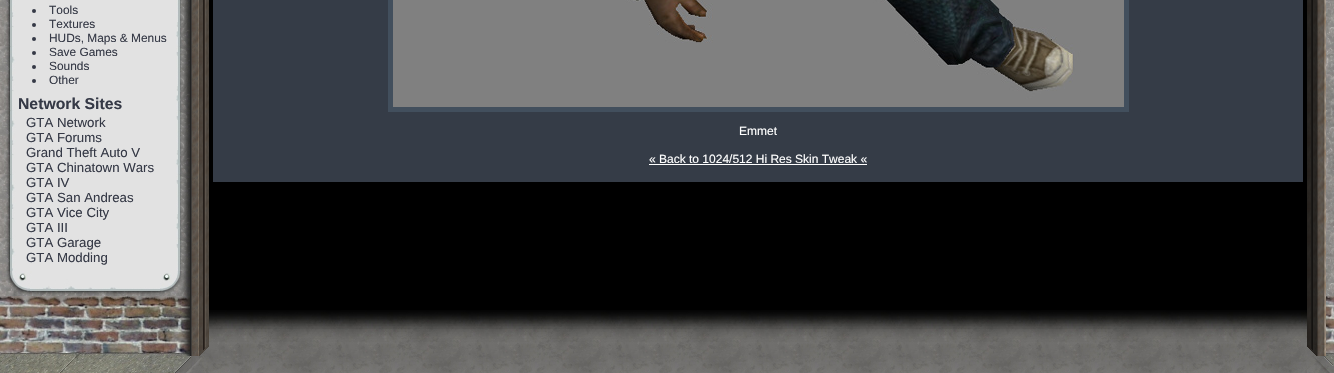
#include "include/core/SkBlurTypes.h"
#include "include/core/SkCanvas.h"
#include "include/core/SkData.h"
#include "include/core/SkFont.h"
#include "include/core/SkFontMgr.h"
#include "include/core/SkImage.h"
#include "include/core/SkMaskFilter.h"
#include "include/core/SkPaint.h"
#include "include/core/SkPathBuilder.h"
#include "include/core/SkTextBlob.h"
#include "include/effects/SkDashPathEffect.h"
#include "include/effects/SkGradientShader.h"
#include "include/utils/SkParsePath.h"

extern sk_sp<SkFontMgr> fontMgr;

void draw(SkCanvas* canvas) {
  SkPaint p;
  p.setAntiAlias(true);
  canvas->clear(SK_ColorWHITE);
  canvas->drawImageRect(SkImages::DeferredFromEncodedData(SkData::MakeFromFileName("images/1.png")), SkRect::MakeLTRB(1326, 0, 1334, 296), SkSamplingOptions());
  canvas->drawImageRect(SkImages::DeferredFromEncodedData(SkData::MakeFromFileName("images/2.png")), SkRect::MakeLTRB(0, 0, 190, 271), SkSamplingOptions());
  p.setColor(SkColorSetRGB(53, 57, 70));
  canvas->drawCircle(34, 11, 2, p);
  canvas->drawCircle(34, 25, 2, p);
  canvas->drawCircle(34, 39, 2, p);
  canvas->drawCircle(34, 53, 2, p);
  canvas->drawCircle(34, 67, 2, p);
  canvas->drawCircle(34, 81, 2, p);
  canvas->drawImageRect(SkImages::DeferredFromEncodedData(SkData::MakeFromFileName("images/3.png")), SkRect::MakeLTRB(0, 271, 190, 296), SkSamplingOptions());
  canvas->drawImageRect(SkImages::DeferredFromEncodedData(SkData::MakeFromFileName("images/4.png")), SkRect::MakeLTRB(190, 0, 209, 296), SkSamplingOptions());
  p.setColor(SK_ColorBLACK);
  canvas->drawRect(SkRect::MakeLTRB(209, 0, 1307, 310), p);
  p.setColor(SkColorSetRGB(53, 60, 71));
  canvas->drawRect(SkRect::MakeLTRB(213, 0, 1303, 182), p);
  p.setColor(SkColorSetRGB(66, 79, 93));
  canvas->drawRect(SkRect::MakeLTRB(388, 0, 1129, 112), p);
  canvas->drawImageRect(SkImages::DeferredFromEncodedData(SkData::MakeFromFileName("images/5.png")), SkRect::MakeLTRB(393, 0, 1124, 107), SkSamplingOptions());
  p.setColor(SK_ColorWHITE);
  canvas->drawRect(SkRect::MakeLTRB(649, 164, 867, 165), p);
  canvas->drawImageRect(SkImages::DeferredFromEncodedData(SkData::MakeFromFileName("images/6.png")), SkRect::MakeLTRB(1307, 0, 1326, 296), SkSamplingOptions());
  canvas->drawImageRect(SkImages::DeferredFromEncodedData(SkData::MakeFromFileName("images/7.png")), SkRect::MakeLTRB(0, 296, 190, 356), SkSamplingOptions());
  canvas->drawImageRect(SkImages::DeferredFromEncodedData(SkData::MakeFromFileName("images/8.png")), SkRect::MakeLTRB(190, 296, 209, 356), SkSamplingOptions());
  canvas->drawImageRect(SkImages::DeferredFromEncodedData(SkData::MakeFromFileName("images/9.png")), SkRect::MakeLTRB(192, 345, 209, 356), SkSamplingOptions());
  canvas->drawImageRect(SkImages::DeferredFromEncodedData(SkData::MakeFromFileName("images/10.png")), SkRect::MakeLTRB(209, 310, 1307, 356), SkSamplingOptions());
  canvas->drawImageRect(SkImages::DeferredFromEncodedData(SkData::MakeFromFileName("images/11.png")), SkRect::MakeLTRB(1307, 296, 1326, 345), SkSamplingOptions());
  canvas->drawImageRect(SkImages::DeferredFromEncodedData(SkData::MakeFromFileName("images/12.png")), SkRect::MakeLTRB(1307, 345, 1326, 356), SkSamplingOptions());
  canvas->drawImageRect(SkImages::DeferredFromEncodedData(SkData::MakeFromFileName("images/13.png")), SkRect::MakeLTRB(1326, 296, 1334, 356), SkSamplingOptions());
  canvas->drawImageRect(SkImages::DeferredFromEncodedData(SkData::MakeFromFileName("images/14.png")), SkRect::MakeLTRB(0, 356, 190, 373), SkSamplingOptions());
  canvas->drawImageRect(SkImages::DeferredFromEncodedData(SkData::MakeFromFileName("images/15.png")), SkRect::MakeLTRB(190, 356, 209, 373), SkSamplingOptions());
  canvas->drawImageRect(SkImages::DeferredFromEncodedData(SkData::MakeFromFileName("images/16.png")), SkRect::MakeLTRB(209, 356, 1307, 373), SkSamplingOptions());
  canvas->drawImageRect(SkImages::DeferredFromEncodedData(SkData::MakeFromFileName("images/17.png")), SkRect::MakeLTRB(1307, 356, 1326, 373), SkSamplingOptions());
  canvas->drawImageRect(SkImages::DeferredFromEncodedData(SkData::MakeFromFileName("images/18.png")), SkRect::MakeLTRB(1326, 356, 1334, 373), SkSamplingOptions());
  SkFont font1(fontMgr->matchFamilyStyle("Liberation Sans", SkFontStyle::Normal()), 11.9f);
  font1.setSubpixel(true);
  p.setColor(SkColorSetRGB(53, 57, 70));
  canvas->drawString("Tools", 49, 14, font1, p);
  canvas->drawString("Textures", 49, 28, font1, p);
  canvas->drawString("HUDs, Maps & Menus", 49, 42, font1, p);
  canvas->drawString("Save Games", 49, 56, font1, p);
  canvas->drawString("Sounds", 49, 70, font1, p);
  canvas->drawString("Other", 49, 84, font1, p);
  SkFont font2(fontMgr->matchFamilyStyle("Liberation Sans", SkFontStyle::Bold()), 15.75f);
  font2.setSubpixel(true);
  canvas->drawString("Network Sites", 18, 109, font2, p);
  SkFont font3(fontMgr->matchFamilyStyle("Liberation Sans", SkFontStyle::Normal()), 13.25f);
  font3.setSubpixel(true);
  canvas->drawString("GTA Network", 26, 127, font3, p);
  canvas->drawString("GTA Forums", 26, 142, font3, p);
  canvas->drawString("Grand Theft Auto V", 26, 157, font3, p);
  canvas->drawString("GTA Chinatown Wars", 26, 172, font3, p);
  canvas->drawString("GTA IV", 26, 187, font3, p);
  canvas->drawString("GTA San Andreas", 26, 202, font3, p);
  canvas->drawString("GTA Vice City", 26, 217, font3, p);
  canvas->drawString("GTA III", 26, 232, font3, p);
  canvas->drawString("GTA Garage", 26, 247, font3, p);
  canvas->drawString("GTA Modding", 26, 262, font3, p);
  SkFont font4(fontMgr->matchFamilyStyle("Liberation Sans", SkFontStyle::Normal()), 12);
  font4.setSubpixel(true);
  p.setColor(SK_ColorWHITE);
  canvas->drawString("Emmet", 739, 135, font4, p);
  canvas->drawString("« Back to 1024/512 Hi Res Skin Tweak «", 649, 163, font4, p);
}
